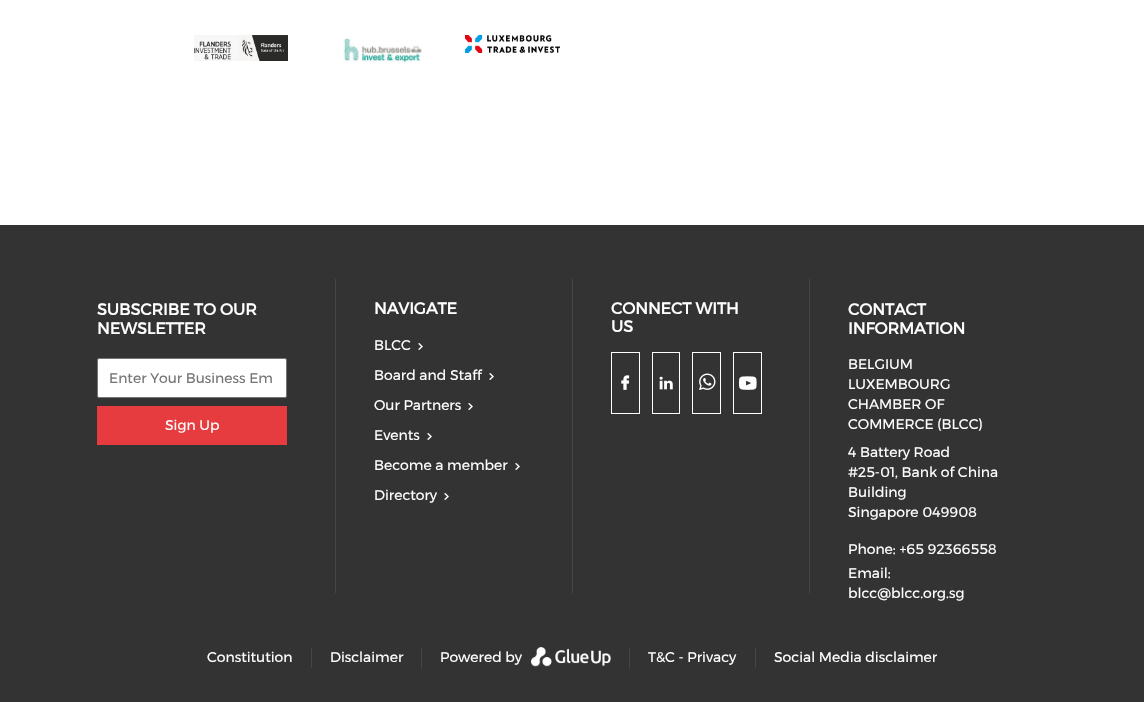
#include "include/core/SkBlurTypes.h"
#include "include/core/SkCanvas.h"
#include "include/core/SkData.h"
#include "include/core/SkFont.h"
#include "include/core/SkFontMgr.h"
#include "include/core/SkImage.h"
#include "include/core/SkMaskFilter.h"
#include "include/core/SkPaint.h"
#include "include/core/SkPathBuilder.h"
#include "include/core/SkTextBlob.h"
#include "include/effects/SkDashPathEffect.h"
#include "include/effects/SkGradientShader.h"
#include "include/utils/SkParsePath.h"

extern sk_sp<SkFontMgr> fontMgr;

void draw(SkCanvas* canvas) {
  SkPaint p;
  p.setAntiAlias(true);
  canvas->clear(SK_ColorWHITE);
  canvas->drawImageRect(SkImages::DeferredFromEncodedData(SkData::MakeFromFileName("images/1.png")), SkRect::MakeLTRB(194, 35, 288, 61), SkSamplingOptions());
  canvas->drawImageRect(SkImages::DeferredFromEncodedData(SkData::MakeFromFileName("images/2.png")), SkRect::MakeLTRB(343, 38, 422, 63), SkSamplingOptions());
  canvas->drawImageRect(SkImages::DeferredFromEncodedData(SkData::MakeFromFileName("images/3.png")), SkRect::MakeLTRB(465, 35, 560, 53), SkSamplingOptions());
  p.setColor(SkColorSetRGB(51, 51, 51));
  canvas->drawRect(SkRect::MakeLTRB(0, 225, 1144, 702), p);
  p.setColor(SK_ColorWHITE);
  canvas->drawRoundRect(SkRect::MakeLTRB(97.5f, 358.5f, 286.5f, 397.5f), 1.5f, 1.5f, p);
  p.setStyle(SkPaint::kStroke_Style);
  p.setStrokeWidth(1);
  p.setColor(SkColorSetRGB(118, 118, 118));
  canvas->drawRoundRect(SkRect::MakeLTRB(97.5f, 358.5f, 286.5f, 397.5f), 1.5f, 1.5f, p);
  p.setStyle(SkPaint::kFill_Style);
  p.setColor(SkColorSetRGB(231, 60, 63));
  canvas->drawRect(SkRect::MakeLTRB(97, 406, 287, 445), p);
  p.setColor(SkColorSetRGB(70, 70, 70));
  canvas->drawRect(SkRect::MakeLTRB(335, 279, 336, 593), p);
  canvas->drawRect(SkRect::MakeLTRB(572, 279, 573, 593), p);
  p.setStyle(SkPaint::kStroke_Style);
  p.setColor(SK_ColorWHITE);
  canvas->drawRect(SkRect::MakeLTRB(611.5f, 352.5f, 639.5f, 413.5f), p);
  canvas->drawRect(SkRect::MakeLTRB(652.5f, 352.5f, 679.5f, 413.5f), p);
  canvas->drawImageRect(SkImages::DeferredFromEncodedData(SkData::MakeFromFileName("images/4.png")), SkRect::MakeLTRB(659, 376, 673, 390), SkSamplingOptions());
  canvas->drawRect(SkRect::MakeLTRB(692.5f, 352.5f, 720.5f, 413.5f), p);
  canvas->drawImageRect(SkImages::DeferredFromEncodedData(SkData::MakeFromFileName("images/5.png")), SkRect::MakeLTRB(699, 373, 716, 390), SkSamplingOptions());
  canvas->drawRect(SkRect::MakeLTRB(733.5f, 352.5f, 761.5f, 413.5f), p);
  canvas->drawImageRect(SkImages::DeferredFromEncodedData(SkData::MakeFromFileName("images/6.png")), SkRect::MakeLTRB(739, 376, 757, 390), SkSamplingOptions());
  p.setStyle(SkPaint::kFill_Style);
  p.setColor(SkColorSetRGB(70, 70, 70));
  canvas->drawRect(SkRect::MakeLTRB(809, 279, 810, 593), p);
  canvas->drawRect(SkRect::MakeLTRB(311, 648, 312, 668), p);
  canvas->drawRect(SkRect::MakeLTRB(421, 648, 422, 668), p);
  canvas->drawImageRect(SkImages::DeferredFromEncodedData(SkData::MakeFromFileName("images/7.png")), SkRect::MakeLTRB(531, 647, 611, 667), SkSamplingOptions());
  canvas->drawRect(SkRect::MakeLTRB(629, 648, 630, 668), p);
  canvas->drawRect(SkRect::MakeLTRB(755, 648, 756, 668), p);
  SkFont font1(fontMgr->matchFamilyStyle("Montserrat", SkFontStyle::Bold()), 16);
  font1.setSubpixel(true);
  p.setColor(SK_ColorWHITE);
  canvas->drawString("SUBSCRIBE TO OUR", 97, 315, font1, p);
  canvas->drawString("NEWSLETTER", 97, 334, font1, p);
  SkFont font2(fontMgr->matchFamilyStyle("Montserrat", SkFontStyle::Normal()), 14);
  font2.setSubpixel(true);
  p.setColor(SkColorSetRGB(117, 117, 117));
  canvas->drawString("Enter Your Business Em", 109, 383, font2, p);
  p.setColor(SK_ColorWHITE);
  canvas->drawString("Sign Up", 165, 430, font2, p);
  canvas->drawString("NAVIGATE", 374, 314, font1, p);
  canvas->drawString("BLCC", 374, 350, font2, p);
  SkFont font3(fontMgr->matchFamilyStyle("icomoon", SkFontStyle::Normal()), 15);
  font3.setSubpixel(true);
  canvas->save();
  canvas->rotate(-90, 427, 354);
  canvas->drawString("9", 427, 354, font3, p);
  canvas->restore();
  canvas->drawString("Board and Staff", 374, 380, font2, p);
  canvas->save();
  canvas->rotate(-90, 498, 384);
  canvas->drawString("9", 498, 384, font3, p);
  canvas->restore();
  canvas->drawString("Our Partners", 374, 410, font2, p);
  canvas->save();
  canvas->rotate(-90, 477, 414);
  canvas->drawString("9", 477, 414, font3, p);
  canvas->restore();
  canvas->drawString("Events", 374, 440, font2, p);
  canvas->save();
  canvas->rotate(-90, 436, 444);
  canvas->drawString("9", 436, 444, font3, p);
  canvas->restore();
  canvas->drawString("Become a member", 374, 470, font2, p);
  canvas->save();
  canvas->rotate(-90, 524, 474);
  canvas->drawString("9", 524, 474, font3, p);
  canvas->restore();
  canvas->drawString("Directory", 374, 500, font2, p);
  canvas->save();
  canvas->rotate(-90, 453, 504);
  canvas->drawString("9", 453, 504, font3, p);
  canvas->restore();
  canvas->drawString("CONNECT WITH", 611, 314, font1, p);
  canvas->drawString("US", 611, 332, font1, p);
  SkFont font4(fontMgr->matchFamilyStyle("icomoon", SkFontStyle::Normal()), 26);
  font4.setSubpixel(true);
  canvas->drawString("3", 612, 394, font4, p);
  canvas->drawString("CONTACT", 848, 315, font1, p);
  canvas->drawString("INFORMATION", 848, 334, font1, p);
  canvas->drawString("BELGIUM", 848, 369, font2, p);
  canvas->drawString("LUXEMBOURG", 848, 389, font2, p);
  canvas->drawString("CHAMBER OF", 848, 409, font2, p);
  canvas->drawString("COMMERCE (BLCC)", 848, 429, font2, p);
  canvas->drawString("4 Battery Road", 848, 457, font2, p);
  canvas->drawString("#25-01, Bank of China", 848, 477, font2, p);
  canvas->drawString("Building", 848, 497, font2, p);
  canvas->drawString("Singapore 049908", 848, 517, font2, p);
  canvas->drawString("Phone: +65 92366558", 848, 554, font2, p);
  canvas->drawString("Email:", 848, 578, font2, p);
  canvas->drawString("blcc@blcc.org.sg", 848, 598, font2, p);
  canvas->drawString("Constitution", 207, 662, font2, p);
  canvas->drawString("Disclaimer", 330, 662, font2, p);
  canvas->drawString("Powered by", 440, 662, font2, p);
  canvas->drawString("T&C - Privacy", 648, 662, font2, p);
  canvas->drawString("Social Media disclaimer", 774, 662, font2, p);
}
